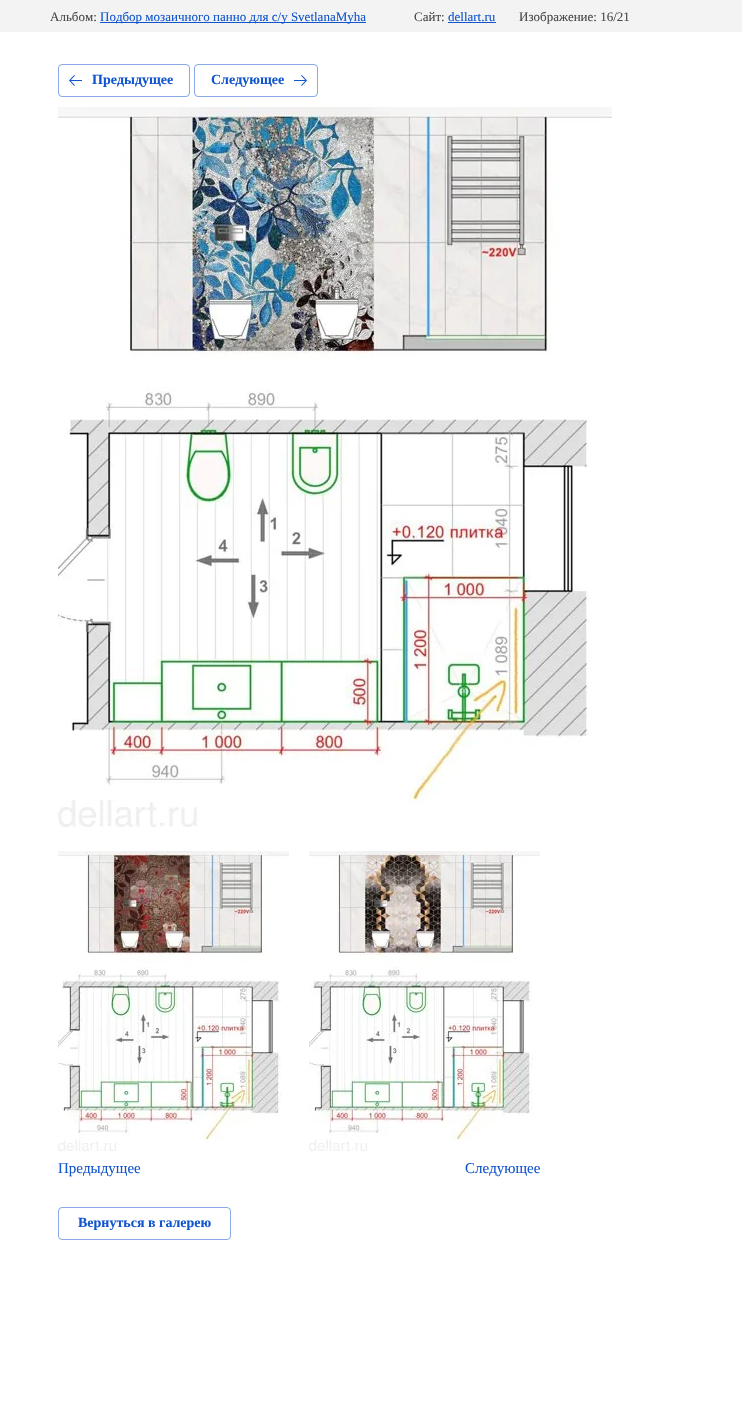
#include "include/core/SkBlurTypes.h"
#include "include/core/SkCanvas.h"
#include "include/core/SkData.h"
#include "include/core/SkFont.h"
#include "include/core/SkFontMgr.h"
#include "include/core/SkImage.h"
#include "include/core/SkMaskFilter.h"
#include "include/core/SkPaint.h"
#include "include/core/SkPathBuilder.h"
#include "include/core/SkTextBlob.h"
#include "include/effects/SkDashPathEffect.h"
#include "include/effects/SkGradientShader.h"
#include "include/utils/SkParsePath.h"

extern sk_sp<SkFontMgr> fontMgr;

void draw(SkCanvas* canvas) {
  SkPaint p;
  p.setAntiAlias(true);
  canvas->clear(SK_ColorWHITE);
  p.setColor(SkColorSetRGB(243, 243, 243));
  canvas->drawRect(SkRect::MakeLTRB(0, 0, 742, 32), p);
  p.setColor(SkColorSetRGB(17, 85, 204));
  canvas->drawRect(SkRect::MakeLTRB(100, 22, 366, 23), p);
  canvas->drawRect(SkRect::MakeLTRB(448, 22, 496, 23), p);
  p.setStyle(SkPaint::kStroke_Style);
  p.setStrokeWidth(1);
  p.setColor(SkColorSetRGB(136, 170, 230));
  canvas->drawRoundRect(SkRect::MakeLTRB(58.5f, 64.5f, 189.5f, 96.5f), 3.5f, 3.5f, p);
  canvas->drawImageRect(SkImages::DeferredFromEncodedData(SkData::MakeFromFileName("images/1.png")), SkRect::MakeLTRB(69, 75, 82, 86), SkSamplingOptions());
  canvas->drawRoundRect(SkRect::MakeLTRB(194.5f, 64.5f, 317.5f, 96.5f), 3.5f, 3.5f, p);
  canvas->drawImageRect(SkImages::DeferredFromEncodedData(SkData::MakeFromFileName("images/2.png")), SkRect::MakeLTRB(294, 75, 307, 86), SkSamplingOptions());
  canvas->drawImageRect(SkImages::DeferredFromEncodedData(SkData::MakeFromFileName("images/3.png")), SkRect::MakeLTRB(58, 107, 612, 827), SkSamplingOptions());
  canvas->drawImageRect(SkImages::DeferredFromEncodedData(SkData::MakeFromFileName("images/4.png")), SkRect::MakeLTRB(58, 851, 289, 1151), SkSamplingOptions());
  canvas->drawImageRect(SkImages::DeferredFromEncodedData(SkData::MakeFromFileName("images/5.png")), SkRect::MakeLTRB(309, 851, 540, 1151), SkSamplingOptions());
  canvas->drawRoundRect(SkRect::MakeLTRB(58.5f, 1207.5f, 230.5f, 1239.5f), 3.5f, 3.5f, p);
  SkFont font1(fontMgr->matchFamilyStyle("Liberation Serif", SkFontStyle::Normal()), 13);
  font1.setSubpixel(true);
  p.setStyle(SkPaint::kFill_Style);
  p.setColor(SkColorSetRGB(72, 72, 72));
  canvas->drawString("Альбом:", 50, 21, font1, p);
  p.setColor(SkColorSetRGB(17, 85, 204));
  canvas->drawString("Подбор мозаичного панно для с/у SvetlanaMyha", 100, 21, font1, p);
  p.setColor(SkColorSetRGB(72, 72, 72));
  canvas->drawString("Сайт:", 414, 21, font1, p);
  p.setColor(SkColorSetRGB(17, 85, 204));
  canvas->drawString("dellart.ru", 448, 21, font1, p);
  p.setColor(SkColorSetRGB(72, 72, 72));
  canvas->drawString("Изображение: 16/21", 519, 21, font1, p);
  SkFont font2(fontMgr->matchFamilyStyle("Liberation Serif", SkFontStyle::Bold()), 14);
  font2.setSubpixel(true);
  p.setColor(SkColorSetRGB(17, 85, 204));
  canvas->drawString("Предыдущее", 92, 84, font2, p);
  canvas->drawString("Следующее", 211, 84, font2, p);
  SkFont font3(fontMgr->matchFamilyStyle("Liberation Serif", SkFontStyle::Normal()), 15);
  font3.setSubpixel(true);
  canvas->drawString("Предыдущее", 58, 1173, font3, p);
  canvas->drawString("Следующее", 465, 1173, font3, p);
  canvas->drawString("Вернуться в галерею", 78, 1227, font2, p);
}
